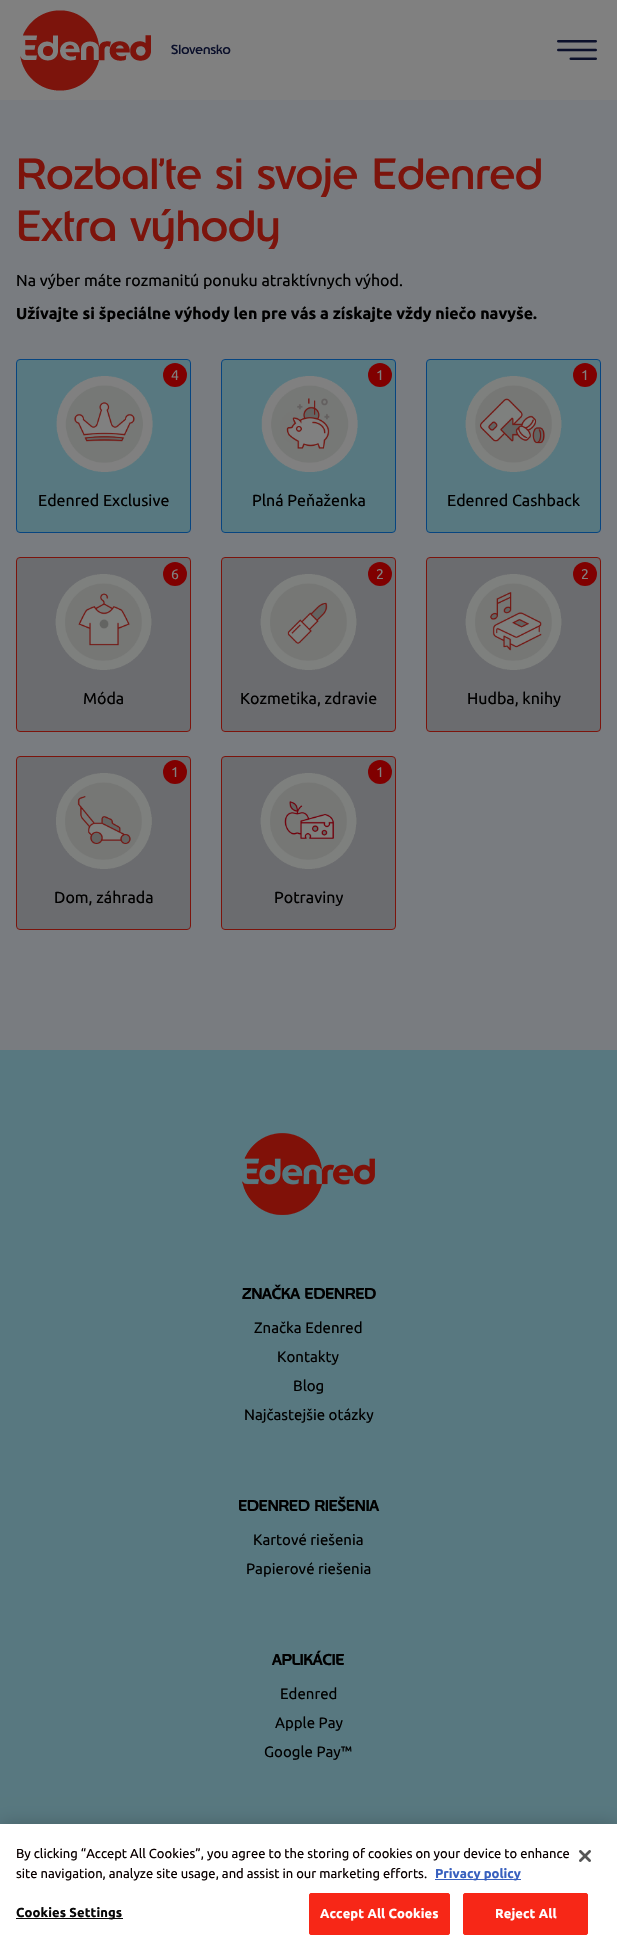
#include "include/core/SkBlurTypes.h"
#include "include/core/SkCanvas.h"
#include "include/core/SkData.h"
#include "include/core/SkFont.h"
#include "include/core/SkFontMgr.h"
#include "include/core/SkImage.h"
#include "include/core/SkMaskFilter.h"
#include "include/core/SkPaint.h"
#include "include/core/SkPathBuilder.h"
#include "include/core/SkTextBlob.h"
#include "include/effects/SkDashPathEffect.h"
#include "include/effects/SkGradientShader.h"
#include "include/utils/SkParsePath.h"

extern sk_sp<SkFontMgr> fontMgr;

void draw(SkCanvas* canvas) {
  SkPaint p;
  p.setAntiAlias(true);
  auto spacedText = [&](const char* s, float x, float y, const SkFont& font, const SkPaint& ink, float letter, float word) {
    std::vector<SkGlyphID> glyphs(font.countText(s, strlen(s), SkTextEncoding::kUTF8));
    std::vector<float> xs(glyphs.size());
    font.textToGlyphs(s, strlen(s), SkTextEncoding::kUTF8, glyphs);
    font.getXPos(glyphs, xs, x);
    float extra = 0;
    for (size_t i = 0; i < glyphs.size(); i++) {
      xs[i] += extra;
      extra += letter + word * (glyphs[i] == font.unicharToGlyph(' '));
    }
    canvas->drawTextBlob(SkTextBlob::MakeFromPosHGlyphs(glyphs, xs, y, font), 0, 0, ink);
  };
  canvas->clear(SkColorSetRGB(128, 128, 128));
  canvas->drawImageRect(SkImages::DeferredFromEncodedData(SkData::MakeFromFileName("images/1.png")), SkRect::MakeLTRB(20, 10, 151, 91), SkSamplingOptions());
  canvas->drawImageRect(SkImages::DeferredFromEncodedData(SkData::MakeFromFileName("images/2.png")), SkRect::MakeLTRB(557, 40, 597, 60), SkSamplingOptions());
  p.setColor(SkColorSetRGB(121, 124, 128));
  canvas->drawRect(SkRect::MakeLTRB(0, 100, 617, 1050), p);
  p.setColor(SkColorSetRGB(88, 120, 128));
  canvas->drawRoundRect(SkRect::MakeLTRB(16.5f, 359.5f, 190.5f, 532.5f), 3.5f, 3.5f, p);
  p.setStyle(SkPaint::kStroke_Style);
  p.setStrokeWidth(1);
  p.setColor(SkColorSetRGB(7, 69, 128));
  canvas->drawRoundRect(SkRect::MakeLTRB(16.5f, 359.5f, 190.5f, 532.5f), 3.5f, 3.5f, p);
  p.setStyle(SkPaint::kFill_Style);
  p.setColor(SkColorSetRGB(128, 0, 0));
  canvas->drawCircle(175, 375, 12, p);
  canvas->drawImageRect(SkImages::DeferredFromEncodedData(SkData::MakeFromFileName("images/3.png")), SkRect::MakeLTRB(56, 376, 153, 472), SkSamplingOptions());
  p.setColor(SkColorSetRGB(88, 120, 128));
  canvas->drawRoundRect(SkRect::MakeLTRB(221.5f, 359.5f, 395.5f, 532.5f), 3.5f, 3.5f, p);
  p.setStyle(SkPaint::kStroke_Style);
  p.setColor(SkColorSetRGB(7, 69, 128));
  canvas->drawRoundRect(SkRect::MakeLTRB(221.5f, 359.5f, 395.5f, 532.5f), 3.5f, 3.5f, p);
  p.setStyle(SkPaint::kFill_Style);
  p.setColor(SkColorSetRGB(128, 0, 0));
  canvas->drawCircle(380, 375, 12, p);
  canvas->drawImageRect(SkImages::DeferredFromEncodedData(SkData::MakeFromFileName("images/4.png")), SkRect::MakeLTRB(261, 376, 358, 472), SkSamplingOptions());
  p.setColor(SkColorSetRGB(88, 120, 128));
  canvas->drawRoundRect(SkRect::MakeLTRB(426.5f, 359.5f, 600.5f, 532.5f), 3.5f, 3.5f, p);
  p.setStyle(SkPaint::kStroke_Style);
  p.setColor(SkColorSetRGB(7, 69, 128));
  canvas->drawRoundRect(SkRect::MakeLTRB(426.5f, 359.5f, 600.5f, 532.5f), 3.5f, 3.5f, p);
  p.setStyle(SkPaint::kFill_Style);
  p.setColor(SkColorSetRGB(128, 0, 0));
  canvas->drawCircle(585, 375, 12, p);
  canvas->drawImageRect(SkImages::DeferredFromEncodedData(SkData::MakeFromFileName("images/5.png")), SkRect::MakeLTRB(465, 376, 562, 472), SkSamplingOptions());
  p.setColor(SkColorSetRGB(107, 108, 111));
  canvas->drawRoundRect(SkRect::MakeLTRB(16.5f, 557.5f, 190.5f, 731.5f), 3.5f, 3.5f, p);
  p.setStyle(SkPaint::kStroke_Style);
  p.setColor(SkColorSetRGB(124, 20, 12));
  canvas->drawRoundRect(SkRect::MakeLTRB(16.5f, 557.5f, 190.5f, 731.5f), 3.5f, 3.5f, p);
  canvas->drawImageRect(SkImages::DeferredFromEncodedData(SkData::MakeFromFileName("images/6.png")), SkRect::MakeLTRB(55, 574, 152, 670), SkSamplingOptions());
  p.setStyle(SkPaint::kFill_Style);
  p.setColor(SkColorSetRGB(128, 0, 0));
  canvas->drawCircle(175, 574, 12, p);
  p.setColor(SkColorSetRGB(107, 108, 111));
  canvas->drawRoundRect(SkRect::MakeLTRB(221.5f, 557.5f, 395.5f, 731.5f), 3.5f, 3.5f, p);
  p.setStyle(SkPaint::kStroke_Style);
  p.setColor(SkColorSetRGB(124, 20, 12));
  canvas->drawRoundRect(SkRect::MakeLTRB(221.5f, 557.5f, 395.5f, 731.5f), 3.5f, 3.5f, p);
  canvas->drawImageRect(SkImages::DeferredFromEncodedData(SkData::MakeFromFileName("images/7.png")), SkRect::MakeLTRB(260, 574, 357, 670), SkSamplingOptions());
  p.setStyle(SkPaint::kFill_Style);
  p.setColor(SkColorSetRGB(128, 0, 0));
  canvas->drawCircle(380, 574, 12, p);
  p.setColor(SkColorSetRGB(107, 108, 111));
  canvas->drawRoundRect(SkRect::MakeLTRB(426.5f, 557.5f, 600.5f, 731.5f), 3.5f, 3.5f, p);
  p.setStyle(SkPaint::kStroke_Style);
  p.setColor(SkColorSetRGB(124, 20, 12));
  canvas->drawRoundRect(SkRect::MakeLTRB(426.5f, 557.5f, 600.5f, 731.5f), 3.5f, 3.5f, p);
  canvas->drawImageRect(SkImages::DeferredFromEncodedData(SkData::MakeFromFileName("images/8.png")), SkRect::MakeLTRB(465, 574, 562, 670), SkSamplingOptions());
  p.setStyle(SkPaint::kFill_Style);
  p.setColor(SkColorSetRGB(128, 0, 0));
  canvas->drawCircle(585, 574, 12, p);
  p.setColor(SkColorSetRGB(107, 108, 111));
  canvas->drawRoundRect(SkRect::MakeLTRB(16.5f, 756.5f, 190.5f, 929.5f), 3.5f, 3.5f, p);
  p.setStyle(SkPaint::kStroke_Style);
  p.setColor(SkColorSetRGB(124, 20, 12));
  canvas->drawRoundRect(SkRect::MakeLTRB(16.5f, 756.5f, 190.5f, 929.5f), 3.5f, 3.5f, p);
  p.setStyle(SkPaint::kFill_Style);
  p.setColor(SkColorSetRGB(128, 0, 0));
  canvas->drawCircle(175, 772, 12, p);
  canvas->drawImageRect(SkImages::DeferredFromEncodedData(SkData::MakeFromFileName("images/9.png")), SkRect::MakeLTRB(56, 773, 152, 869), SkSamplingOptions());
  p.setColor(SkColorSetRGB(107, 108, 111));
  canvas->drawRoundRect(SkRect::MakeLTRB(221.5f, 756.5f, 395.5f, 929.5f), 3.5f, 3.5f, p);
  p.setStyle(SkPaint::kStroke_Style);
  p.setColor(SkColorSetRGB(124, 20, 12));
  canvas->drawRoundRect(SkRect::MakeLTRB(221.5f, 756.5f, 395.5f, 929.5f), 3.5f, 3.5f, p);
  p.setStyle(SkPaint::kFill_Style);
  p.setColor(SkColorSetRGB(128, 0, 0));
  canvas->drawCircle(380, 772, 12, p);
  canvas->drawImageRect(SkImages::DeferredFromEncodedData(SkData::MakeFromFileName("images/10.png")), SkRect::MakeLTRB(260, 773, 357, 869), SkSamplingOptions());
  p.setColor(SkColorSetRGB(88, 120, 128));
  canvas->drawRect(SkRect::MakeLTRB(0, 1050, 617, 1824), p);
  canvas->drawImageRect(SkImages::DeferredFromEncodedData(SkData::MakeFromFileName("images/11.png")), SkRect::MakeLTRB(242, 1133, 375, 1215), SkSamplingOptions());
  p.setColor(SkColorSetARGB(51, 0, 0, 0));
  p.setMaskFilter(SkMaskFilter::MakeBlur(kNormal_SkBlurStyle, 9));
  canvas->drawRect(SkRect::MakeLTRB(0, 1824, 617, 1954), p);
  p.setMaskFilter(nullptr);
  p.setColor(SK_ColorWHITE);
  canvas->drawRect(SkRect::MakeLTRB(0, 1824, 617, 1954), p);
  p.setColor(SkColorSetRGB(56, 96, 190));
  canvas->drawRect(SkRect::MakeLTRB(435, 1879, 521, 1880), p);
  p.setColor(SkColorSetRGB(8, 8, 8));
  canvas->drawRect(SkRect::MakeLTRB(16, 1918, 123, 1919), p);
  p.setColor(SkColorSetRGB(247, 39, 23));
  canvas->drawRoundRect(SkRect::MakeLTRB(309.5f, 1893.5f, 449.5f, 1934.5f), 1.5f, 1.5f, p);
  p.setStyle(SkPaint::kStroke_Style);
  canvas->drawRoundRect(SkRect::MakeLTRB(309.5f, 1893.5f, 449.5f, 1934.5f), 1.5f, 1.5f, p);
  p.setStyle(SkPaint::kFill_Style);
  canvas->drawRoundRect(SkRect::MakeLTRB(463.5f, 1893.5f, 587.5f, 1934.5f), 1.5f, 1.5f, p);
  p.setStyle(SkPaint::kStroke_Style);
  canvas->drawRoundRect(SkRect::MakeLTRB(463.5f, 1893.5f, 587.5f, 1934.5f), 1.5f, 1.5f, p);
  canvas->drawImageRect(SkImages::DeferredFromEncodedData(SkData::MakeFromFileName("images/12.png")), SkRect::MakeLTRB(579, 1850, 591, 1862), SkSamplingOptions());
  SkFont font1(fontMgr->matchFamilyStyle("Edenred", SkFontStyle::Normal()), 13);
  font1.setSubpixel(true);
  p.setStyle(SkPaint::kFill_Style);
  p.setColor(SkColorSetRGB(11, 16, 43));
  canvas->drawString("Slovensko", 171, 54, font1, p);
  SkFont font2(fontMgr->matchFamilyStyle("Edenred", SkFontStyle::Normal()), 43.25f);
  font2.setSubpixel(true);
  p.setColor(SkColorSetRGB(124, 20, 12));
  canvas->drawString("Rozbaľte si svoje Edenred", 16, 189, font2, p);
  canvas->drawString("Extra výhody", 16, 241, font2, p);
  SkFont font3(fontMgr->matchFamilyStyle("Ubuntu", SkFontStyle::Normal()), 16);
  font3.setSubpixel(true);
  p.setColor(SK_ColorBLACK);
  canvas->drawString("Na výber máte rozmanitú ponuku atraktívnych výhod.", 16, 286, font3, p);
  SkFont font4(fontMgr->matchFamilyStyle("Ubuntu", SkFontStyle::Bold()), 16);
  font4.setSubpixel(true);
  canvas->drawString("Užívajte si špeciálne výhody len pre vás a získajte vždy niečo navyše.", 16, 319, font4, p);
  SkFont font5(fontMgr->matchFamilyStyle("Ubuntu", SkFontStyle::Normal()), 14);
  font5.setSubpixel(true);
  p.setColor(SkColorSetRGB(128, 128, 128));
  canvas->drawString("4", 171, 380, font5, p);
  p.setColor(SK_ColorBLACK);
  canvas->drawString("Edenred Exclusive", 38, 506, font3, p);
  p.setColor(SkColorSetRGB(128, 128, 128));
  canvas->drawString("1", 376, 380, font5, p);
  p.setColor(SK_ColorBLACK);
  canvas->drawString("Plná Peňaženka", 252, 506, font3, p);
  p.setColor(SkColorSetRGB(128, 128, 128));
  canvas->drawString("1", 581, 380, font5, p);
  p.setColor(SK_ColorBLACK);
  canvas->drawString("Edenred Cashback", 447, 506, font3, p);
  p.setColor(SkColorSetRGB(128, 128, 128));
  canvas->drawString("6", 171, 579, font5, p);
  p.setColor(SK_ColorBLACK);
  canvas->drawString("Móda", 83, 704, font3, p);
  p.setColor(SkColorSetRGB(128, 128, 128));
  canvas->drawString("2", 376, 579, font5, p);
  p.setColor(SK_ColorBLACK);
  canvas->drawString("Kozmetika, zdravie", 240, 704, font3, p);
  p.setColor(SkColorSetRGB(128, 128, 128));
  canvas->drawString("2", 581, 579, font5, p);
  p.setColor(SK_ColorBLACK);
  canvas->drawString("Hudba, knihy", 467, 704, font3, p);
  p.setColor(SkColorSetRGB(128, 128, 128));
  canvas->drawString("1", 171, 777, font5, p);
  p.setColor(SK_ColorBLACK);
  canvas->drawString("Dom, záhrada", 54, 903, font3, p);
  p.setColor(SkColorSetRGB(128, 128, 128));
  canvas->drawString("1", 376, 777, font5, p);
  p.setColor(SK_ColorBLACK);
  canvas->drawString("Potraviny", 274, 903, font3, p);
  SkFont font6(fontMgr->matchFamilyStyle("Edenred", SkFontStyle::Bold()), 15);
  font6.setSubpixel(true);
  canvas->drawString("ZNAČKA EDENRED", 242, 1299, font6, p);
  SkFont font7(fontMgr->matchFamilyStyle("Ubuntu", SkFontStyle::Normal()), 15);
  font7.setSubpixel(true);
  canvas->drawString("Značka Edenred", 254, 1333, font7, p);
  canvas->drawString("Kontakty", 277, 1362, font7, p);
  canvas->drawString("Blog", 293, 1391, font7, p);
  canvas->drawString("Najčastejšie otázky", 244, 1420, font7, p);
  canvas->drawString("EDENRED RIEŠENIA", 238, 1511, font6, p);
  canvas->drawString("Kartové riešenia", 253, 1545, font7, p);
  canvas->drawString("Papierové riešenia", 246, 1574, font7, p);
  canvas->drawString("APLIKÁCIE", 272, 1665, font6, p);
  canvas->drawString("Edenred", 280, 1699, font7, p);
  canvas->drawString("Apple Pay", 275, 1728, font7, p);
  canvas->drawString("Google Pay™", 264, 1757, font7, p);
  SkFont font8(fontMgr->matchFamilyStyle("Ubuntu", SkFontStyle::Normal()), 13);
  font8.setSubpixel(true);
  p.setColor(SkColorSetRGB(10, 0, 0));
  canvas->drawString("By clicking “Accept All Cookies”, you agree to the storing of cookies on your device to enhance", 16, 1858, font8, p);
  canvas->drawString("site navigation, analyze site usage, and assist in our marketing efforts.", 16, 1878, font8, p);
  SkFont font9(fontMgr->matchFamilyStyle("Ubuntu", SkFontStyle::Bold()), 13);
  font9.setSubpixel(true);
  p.setColor(SkColorSetRGB(56, 96, 190));
  canvas->drawString("Privacy policy", 435, 1878, font9, p);
  p.setColor(SkColorSetRGB(8, 8, 8));
  spacedText("Cookies Settings", 16, 1917, font9, p, 0.1f, 0);
  p.setColor(SK_ColorWHITE);
  spacedText("Accept All Cookies", 320, 1918, font9, p, 0.1f, 0);
  spacedText("Reject All", 495, 1918, font9, p, 0.1f, 0);
}
